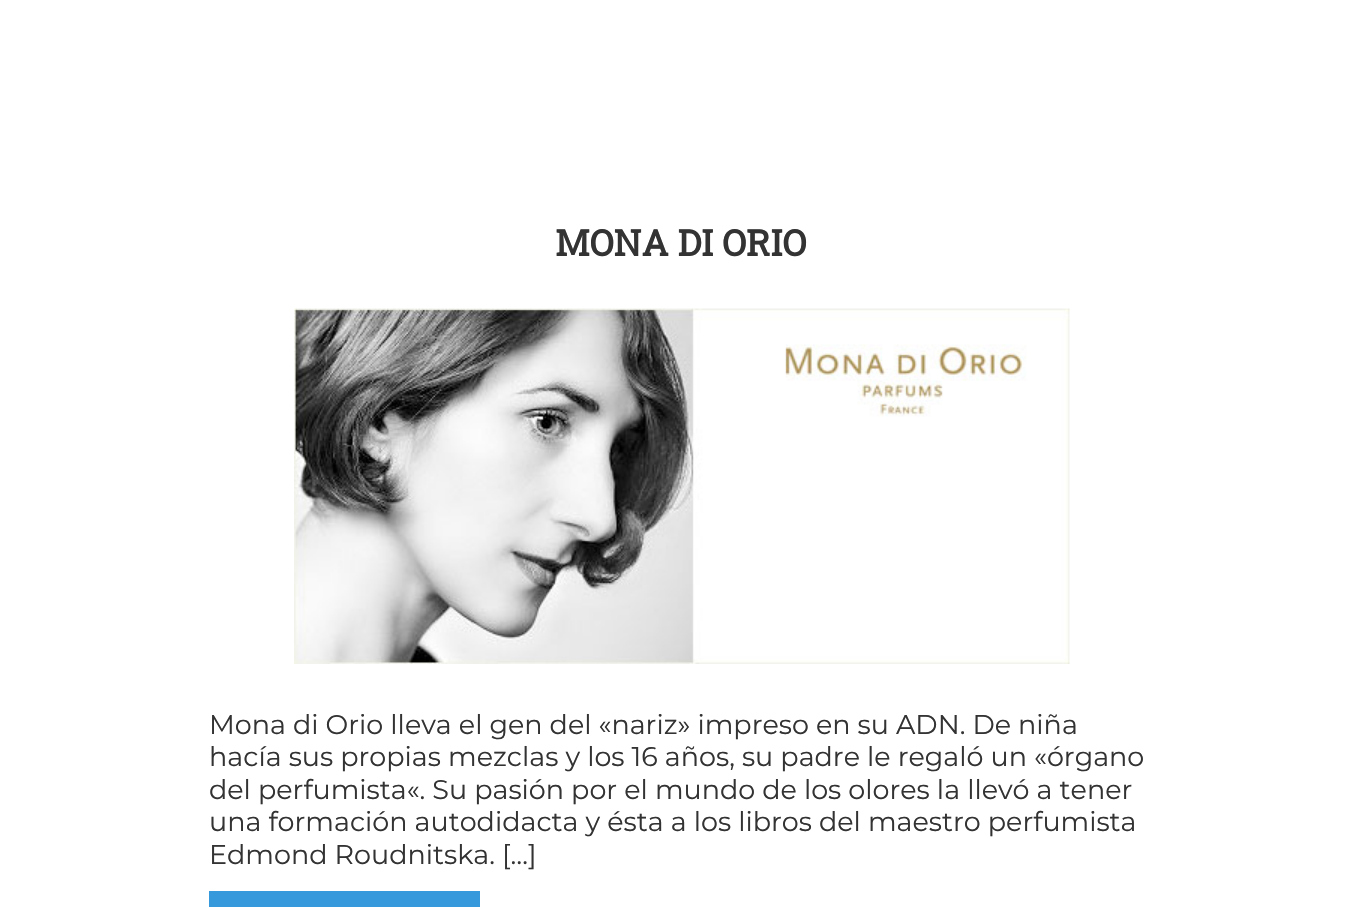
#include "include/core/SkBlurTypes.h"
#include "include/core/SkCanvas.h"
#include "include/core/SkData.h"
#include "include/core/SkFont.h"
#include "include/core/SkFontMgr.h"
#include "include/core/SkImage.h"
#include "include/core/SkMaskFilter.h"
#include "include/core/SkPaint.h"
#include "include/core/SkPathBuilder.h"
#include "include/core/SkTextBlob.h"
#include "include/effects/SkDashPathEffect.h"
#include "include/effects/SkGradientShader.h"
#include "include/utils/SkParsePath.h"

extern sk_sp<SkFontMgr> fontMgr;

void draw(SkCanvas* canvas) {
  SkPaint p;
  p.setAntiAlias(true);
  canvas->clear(SK_ColorWHITE);
  canvas->drawImageRect(SkImages::DeferredFromEncodedData(SkData::MakeFromFileName("images/1.png")), SkRect::MakeLTRB(294, 308, 1070, 664), SkSamplingOptions());
  p.setColor(SkColorSetRGB(54, 153, 220));
  canvas->drawRect(SkRect::MakeLTRB(209, 891, 480, 907), p);
  SkFont font1(fontMgr->matchFamilyStyle("Roboto Slab", SkFontStyle::Bold()), 36);
  font1.setSubpixel(true);
  p.setColor(SkColorSetRGB(51, 51, 51));
  canvas->drawString("MONA DI ORIO", 555, 256, font1, p);
  SkFont font2(fontMgr->matchFamilyStyle("Montserrat", SkFontStyle::Normal()), 27);
  font2.setSubpixel(true);
  canvas->drawString("Mona di Orio lleva el gen del «nariz» impreso en su ADN. De niña", 209, 734, font2, p);
  canvas->drawString("hacía sus propias mezclas y los 16 años, su padre le regaló un «órgano", 209, 766, font2, p);
  canvas->drawString("del perfumista«. Su pasión por el mundo de los olores la llevó a tener", 209, 799, font2, p);
  canvas->drawString("una formación autodidacta y ésta a los libros del maestro perfumista", 209, 831, font2, p);
  canvas->drawString("Edmond Roudnitska. […]", 209, 864, font2, p);
}
